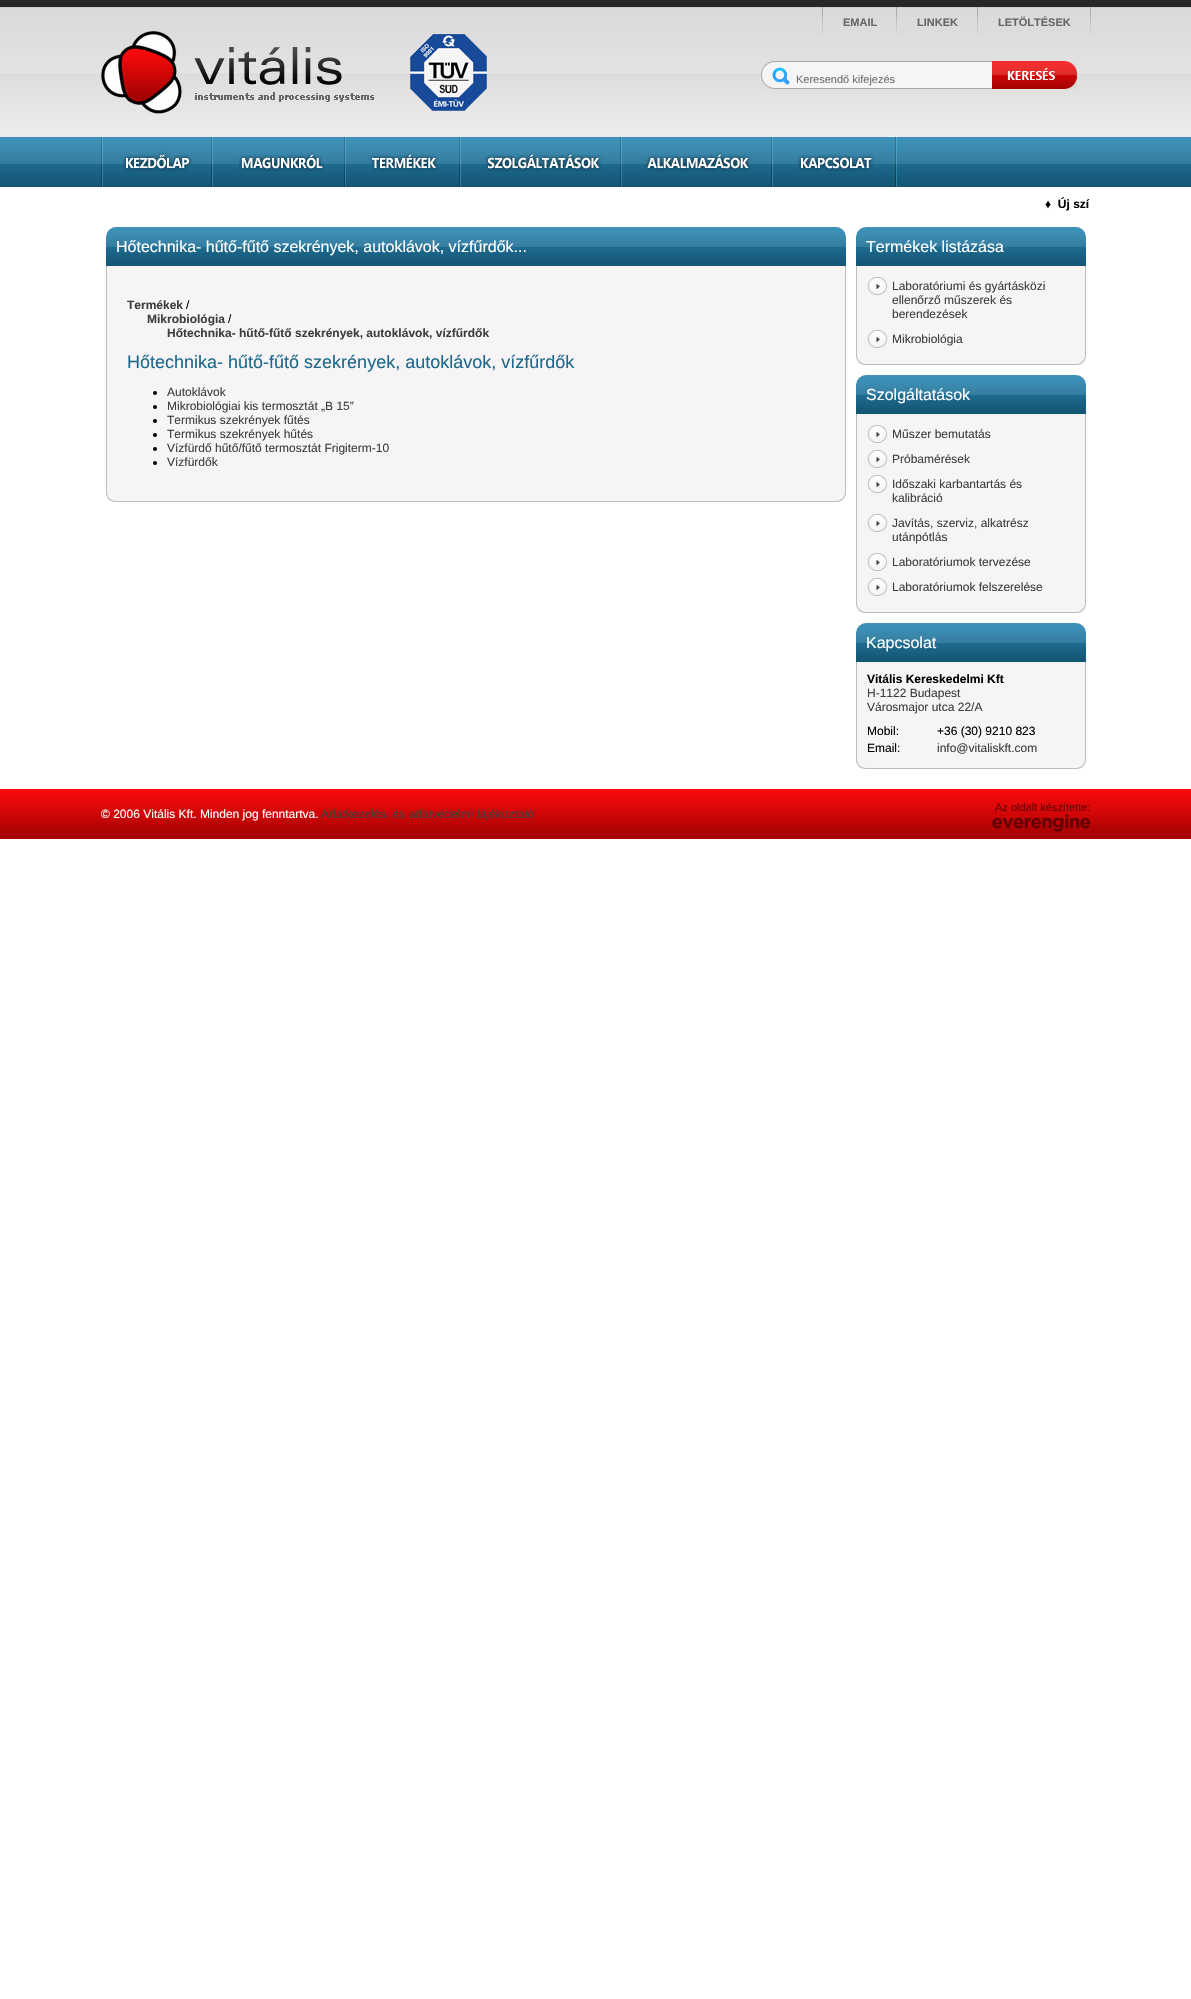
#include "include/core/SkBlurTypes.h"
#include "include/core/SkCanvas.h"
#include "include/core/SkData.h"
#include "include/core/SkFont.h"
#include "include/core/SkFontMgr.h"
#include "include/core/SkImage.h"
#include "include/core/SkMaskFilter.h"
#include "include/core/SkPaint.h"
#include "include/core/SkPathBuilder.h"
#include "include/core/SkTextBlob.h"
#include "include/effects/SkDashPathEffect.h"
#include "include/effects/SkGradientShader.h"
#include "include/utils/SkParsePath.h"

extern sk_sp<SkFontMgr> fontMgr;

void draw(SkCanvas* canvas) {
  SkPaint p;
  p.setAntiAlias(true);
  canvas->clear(SK_ColorWHITE);
  canvas->drawImageRect(SkImages::DeferredFromEncodedData(SkData::MakeFromFileName("images/1.png")), SkRect::MakeLTRB(0, 0, 1191, 187), SkSamplingOptions());
  canvas->drawImageRect(SkImages::DeferredFromEncodedData(SkData::MakeFromFileName("images/2.png")), SkRect::MakeLTRB(0, 789, 1191, 839), SkSamplingOptions());
  canvas->drawImageRect(SkImages::DeferredFromEncodedData(SkData::MakeFromFileName("images/3.png")), SkRect::MakeLTRB(101, 31, 487, 114), SkSamplingOptions());
  canvas->drawImageRect(SkImages::DeferredFromEncodedData(SkData::MakeFromFileName("images/4.png")), SkRect::MakeLTRB(896, 7, 897, 34), SkSamplingOptions());
  canvas->drawImageRect(SkImages::DeferredFromEncodedData(SkData::MakeFromFileName("images/4.png")), SkRect::MakeLTRB(822, 7, 823, 34), SkSamplingOptions());
  canvas->drawImageRect(SkImages::DeferredFromEncodedData(SkData::MakeFromFileName("images/4.png")), SkRect::MakeLTRB(977, 7, 978, 34), SkSamplingOptions());
  canvas->drawImageRect(SkImages::DeferredFromEncodedData(SkData::MakeFromFileName("images/4.png")), SkRect::MakeLTRB(1090, 7, 1091, 34), SkSamplingOptions());
  canvas->drawImageRect(SkImages::DeferredFromEncodedData(SkData::MakeFromFileName("images/5.png")), SkRect::MakeLTRB(761, 61, 992, 89), SkSamplingOptions());
  canvas->drawImageRect(SkImages::DeferredFromEncodedData(SkData::MakeFromFileName("images/6.png")), SkRect::MakeLTRB(992, 61, 1077, 89), SkSamplingOptions());
  canvas->drawImageRect(SkImages::DeferredFromEncodedData(SkData::MakeFromFileName("images/7.png")), SkRect::MakeLTRB(101, 137, 212, 187), SkSamplingOptions());
  canvas->drawImageRect(SkImages::DeferredFromEncodedData(SkData::MakeFromFileName("images/8.png")), SkRect::MakeLTRB(212, 137, 345, 187), SkSamplingOptions());
  canvas->drawImageRect(SkImages::DeferredFromEncodedData(SkData::MakeFromFileName("images/9.png")), SkRect::MakeLTRB(345, 137, 460, 187), SkSamplingOptions());
  canvas->drawImageRect(SkImages::DeferredFromEncodedData(SkData::MakeFromFileName("images/10.png")), SkRect::MakeLTRB(460, 137, 621, 187), SkSamplingOptions());
  canvas->drawImageRect(SkImages::DeferredFromEncodedData(SkData::MakeFromFileName("images/11.png")), SkRect::MakeLTRB(621, 137, 772, 187), SkSamplingOptions());
  canvas->drawImageRect(SkImages::DeferredFromEncodedData(SkData::MakeFromFileName("images/12.png")), SkRect::MakeLTRB(772, 137, 897, 187), SkSamplingOptions());
  canvas->drawImageRect(SkImages::DeferredFromEncodedData(SkData::MakeFromFileName("images/13.png")), SkRect::MakeLTRB(106, 227, 846, 266), SkSamplingOptions());
  p.setColor(SkColorSetRGB(246, 244, 244));
  canvas->drawPath(SkPathBuilder().moveTo(106, 266).lineTo(846, 266).lineTo(846, 492).cubicTo(846, 497.5f, 841.5f, 502, 836, 502).lineTo(116, 502).cubicTo(110.5f, 502, 106, 497.5f, 106, 492).close().detach(), p);
  p.setColor(SkColorSetRGB(190, 189, 189));
  canvas->drawPath(SkPathBuilder(SkPathFillType::kEvenOdd).moveTo(106, 266).lineTo(846, 266).lineTo(846, 492).cubicTo(846, 498, 842, 502, 836, 502).lineTo(116, 502).cubicTo(110, 502, 106, 498, 106, 492).close().moveTo(107, 266).lineTo(845, 266).lineTo(845, 492).cubicTo(845, 497, 841, 501, 836, 501).lineTo(116, 501).cubicTo(111, 501, 107, 497, 107, 492).close().detach(), p);
  p.setColor(SK_ColorBLACK);
  canvas->drawCircle(155, 393, 2, p);
  canvas->drawCircle(155, 407, 2, p);
  canvas->drawCircle(155, 421, 2, p);
  canvas->drawCircle(155, 435, 2, p);
  canvas->drawCircle(155, 449, 2, p);
  canvas->drawCircle(155, 463, 2, p);
  canvas->drawImageRect(SkImages::DeferredFromEncodedData(SkData::MakeFromFileName("images/14.png")), SkRect::MakeLTRB(856, 227, 1086, 266), SkSamplingOptions());
  p.setColor(SkColorSetRGB(246, 244, 244));
  canvas->drawPath(SkPathBuilder().moveTo(856, 266).lineTo(1086, 266).lineTo(1086, 355).cubicTo(1086, 360.5f, 1081.5f, 365, 1076, 365).lineTo(866, 365).cubicTo(860.5f, 365, 856, 360.5f, 856, 355).close().detach(), p);
  p.setColor(SkColorSetRGB(190, 189, 189));
  canvas->drawPath(SkPathBuilder(SkPathFillType::kEvenOdd).moveTo(856, 266).lineTo(1086, 266).lineTo(1086, 355).cubicTo(1086, 361, 1082, 365, 1076, 365).lineTo(866, 365).cubicTo(860, 365, 856, 361, 856, 355).close().moveTo(857, 266).lineTo(1085, 266).lineTo(1085, 355).cubicTo(1085, 360, 1081, 364, 1076, 364).lineTo(866, 364).cubicTo(861, 364, 857, 360, 857, 355).close().detach(), p);
  canvas->drawImageRect(SkImages::DeferredFromEncodedData(SkData::MakeFromFileName("images/15.png")), SkRect::MakeLTRB(867, 277, 887, 295), SkSamplingOptions());
  canvas->drawImageRect(SkImages::DeferredFromEncodedData(SkData::MakeFromFileName("images/15.png")), SkRect::MakeLTRB(867, 330, 887, 348), SkSamplingOptions());
  canvas->drawImageRect(SkImages::DeferredFromEncodedData(SkData::MakeFromFileName("images/14.png")), SkRect::MakeLTRB(856, 375, 1086, 414), SkSamplingOptions());
  p.setColor(SkColorSetRGB(246, 244, 244));
  canvas->drawPath(SkPathBuilder().moveTo(856, 414).lineTo(1086, 414).lineTo(1086, 603).cubicTo(1086, 608.5f, 1081.5f, 613, 1076, 613).lineTo(866, 613).cubicTo(860.5f, 613, 856, 608.5f, 856, 603).close().detach(), p);
  p.setColor(SkColorSetRGB(190, 189, 189));
  canvas->drawPath(SkPathBuilder(SkPathFillType::kEvenOdd).moveTo(856, 414).lineTo(1086, 414).lineTo(1086, 603).cubicTo(1086, 609, 1082, 613, 1076, 613).lineTo(866, 613).cubicTo(860, 613, 856, 609, 856, 603).close().moveTo(857, 414).lineTo(1085, 414).lineTo(1085, 603).cubicTo(1085, 608, 1081, 612, 1076, 612).lineTo(866, 612).cubicTo(861, 612, 857, 608, 857, 603).close().detach(), p);
  canvas->drawImageRect(SkImages::DeferredFromEncodedData(SkData::MakeFromFileName("images/15.png")), SkRect::MakeLTRB(867, 425, 887, 443), SkSamplingOptions());
  canvas->drawImageRect(SkImages::DeferredFromEncodedData(SkData::MakeFromFileName("images/15.png")), SkRect::MakeLTRB(867, 450, 887, 468), SkSamplingOptions());
  canvas->drawImageRect(SkImages::DeferredFromEncodedData(SkData::MakeFromFileName("images/15.png")), SkRect::MakeLTRB(867, 475, 887, 493), SkSamplingOptions());
  canvas->drawImageRect(SkImages::DeferredFromEncodedData(SkData::MakeFromFileName("images/15.png")), SkRect::MakeLTRB(867, 514, 887, 532), SkSamplingOptions());
  canvas->drawImageRect(SkImages::DeferredFromEncodedData(SkData::MakeFromFileName("images/15.png")), SkRect::MakeLTRB(867, 553, 887, 571), SkSamplingOptions());
  canvas->drawImageRect(SkImages::DeferredFromEncodedData(SkData::MakeFromFileName("images/15.png")), SkRect::MakeLTRB(867, 578, 887, 596), SkSamplingOptions());
  canvas->drawImageRect(SkImages::DeferredFromEncodedData(SkData::MakeFromFileName("images/14.png")), SkRect::MakeLTRB(856, 623, 1086, 662), SkSamplingOptions());
  p.setColor(SkColorSetRGB(246, 244, 244));
  canvas->drawPath(SkPathBuilder().moveTo(856, 662).lineTo(1086, 662).lineTo(1086, 759).cubicTo(1086, 764.5f, 1081.5f, 769, 1076, 769).lineTo(866, 769).cubicTo(860.5f, 769, 856, 764.5f, 856, 759).close().detach(), p);
  p.setColor(SkColorSetRGB(190, 189, 189));
  canvas->drawPath(SkPathBuilder(SkPathFillType::kEvenOdd).moveTo(856, 662).lineTo(1086, 662).lineTo(1086, 759).cubicTo(1086, 765, 1082, 769, 1076, 769).lineTo(866, 769).cubicTo(860, 769, 856, 765, 856, 759).close().moveTo(857, 662).lineTo(1085, 662).lineTo(1085, 759).cubicTo(1085, 764, 1081, 768, 1076, 768).lineTo(866, 768).cubicTo(861, 768, 857, 764, 857, 759).close().detach(), p);
  canvas->drawImageRect(SkImages::DeferredFromEncodedData(SkData::MakeFromFileName("images/16.png")), SkRect::MakeLTRB(992, 814, 1091, 832), SkSamplingOptions());
  SkFont font1(fontMgr->matchFamilyStyle("Liberation Sans", SkFontStyle::Bold()), 11);
  font1.setSubpixel(true);
  p.setColor(SkColorSetRGB(102, 102, 102));
  canvas->drawString("EMAIL", 843, 26, font1, p);
  canvas->drawString("LINKEK", 917, 26, font1, p);
  canvas->drawString("LETÖLTÉSEK", 998, 26, font1, p);
  SkFont font2(fontMgr->matchFamilyStyle("Liberation Sans", SkFontStyle::Normal()), 11);
  font2.setSubpixel(true);
  p.setColor(SkColorSetRGB(110, 110, 110));
  canvas->drawString("Keresendő kifejezés", 796, 83, font2, p);
  SkFont font3(fontMgr->matchFamilyStyle("Liberation Sans", SkFontStyle::Bold()), 12);
  font3.setSubpixel(true);
  p.setColor(SK_ColorBLACK);
  canvas->drawString("♦  Új szí", 1045, 208, font3, p);
  SkFont font4(fontMgr->matchFamilyStyle("Liberation Sans", SkFontStyle::Normal()), 16);
  font4.setSubpixel(true);
  p.setColor(SK_ColorWHITE);
  canvas->drawString("Hőtechnika- hűtő-fűtő szekrények, autoklávok, vízfűrdők...", 116, 252, font4, p);
  p.setColor(SkColorSetRGB(62, 62, 62));
  canvas->drawString("Termékek", 127, 309, font3, p);
  SkFont font5(fontMgr->matchFamilyStyle("Liberation Sans", SkFontStyle::Normal()), 12);
  font5.setSubpixel(true);
  p.setColor(SK_ColorBLACK);
  canvas->drawString("/", 186, 309, font5, p);
  p.setColor(SkColorSetRGB(62, 62, 62));
  canvas->drawString("Mikrobiológia", 147, 323, font3, p);
  p.setColor(SK_ColorBLACK);
  canvas->drawString("/", 228, 323, font5, p);
  p.setColor(SkColorSetRGB(62, 62, 62));
  canvas->drawString("Hőtechnika- hűtő-fűtő szekrények, autoklávok, vízfűrdők", 167, 337, font3, p);
  SkFont font6(fontMgr->matchFamilyStyle("Liberation Sans", SkFontStyle::Normal()), 18);
  font6.setSubpixel(true);
  p.setColor(SkColorSetRGB(29, 105, 141));
  canvas->drawString("Hőtechnika- hűtő-fűtő szekrények, autoklávok, vízfűrdők", 127, 368, font6, p);
  p.setColor(SkColorSetRGB(62, 62, 62));
  canvas->drawString("Autoklávok", 167, 396, font5, p);
  canvas->drawString("Mikrobiológiai kis termosztát „B 15”", 167, 410, font5, p);
  canvas->drawString("Termikus szekrények fűtés", 167, 424, font5, p);
  canvas->drawString("Termikus szekrények hűtés", 167, 438, font5, p);
  canvas->drawString("Vízfürdő hűtő/fűtő termosztát Frigiterm-10", 167, 452, font5, p);
  canvas->drawString("Vízfürdők", 167, 466, font5, p);
  p.setColor(SK_ColorWHITE);
  canvas->drawString("Termékek listázása", 866, 252, font4, p);
  p.setColor(SkColorSetRGB(62, 62, 62));
  canvas->drawString("Laboratóriumi és gyártásközi", 892, 290, font5, p);
  canvas->drawString("ellenőrző műszerek és", 892, 304, font5, p);
  canvas->drawString("berendezések", 892, 318, font5, p);
  canvas->drawString("Mikrobiológia", 892, 343, font5, p);
  p.setColor(SK_ColorWHITE);
  canvas->drawString("Szolgáltatások", 866, 400, font4, p);
  p.setColor(SkColorSetRGB(62, 62, 62));
  canvas->drawString("Műszer bemutatás", 892, 438, font5, p);
  canvas->drawString("Próbamérések", 892, 463, font5, p);
  canvas->drawString("Időszaki karbantartás és", 892, 488, font5, p);
  canvas->drawString("kalibráció", 892, 502, font5, p);
  canvas->drawString("Javítás, szerviz, alkatrész", 892, 527, font5, p);
  canvas->drawString("utánpótlás", 892, 541, font5, p);
  canvas->drawString("Laboratóriumok tervezése", 892, 566, font5, p);
  canvas->drawString("Laboratóriumok felszerelése", 892, 591, font5, p);
  p.setColor(SK_ColorWHITE);
  canvas->drawString("Kapcsolat", 866, 648, font4, p);
  p.setColor(SK_ColorBLACK);
  canvas->drawString("Vitális Kereskedelmi Kft", 867, 683, font3, p);
  p.setColor(SkColorSetRGB(62, 62, 62));
  canvas->drawString("H-1122 Budapest", 867, 697, font5, p);
  canvas->drawString("Városmajor utca 22/A", 867, 711, font5, p);
  p.setColor(SK_ColorBLACK);
  canvas->drawString("Mobil:", 867, 735, font5, p);
  canvas->drawString("+36 (30) 9210 823", 937, 735, font5, p);
  canvas->drawString("Email:", 867, 752, font5, p);
  p.setColor(SkColorSetRGB(62, 62, 62));
  canvas->drawString("info@vitaliskft.com", 937, 752, font5, p);
  p.setColor(SkColorSetRGB(102, 0, 0));
  canvas->drawString("Az oldalt készítette:", 995, 811, font2, p);
  canvas->save();
  canvas->clipRect(SkRect::MakeLTRB(101, 789, 1091, 839));
  p.setColor(SK_ColorWHITE);
  canvas->drawString("© 2006 Vitális Kft. Minden jog fenntartva.", 101, 818, font5, p);
  canvas->restore();
  p.setColor(SkColorSetRGB(62, 62, 62));
  canvas->drawString("Adatkezelési és adatvédelmi tájékoztató", 321, 818, font5, p);
}
